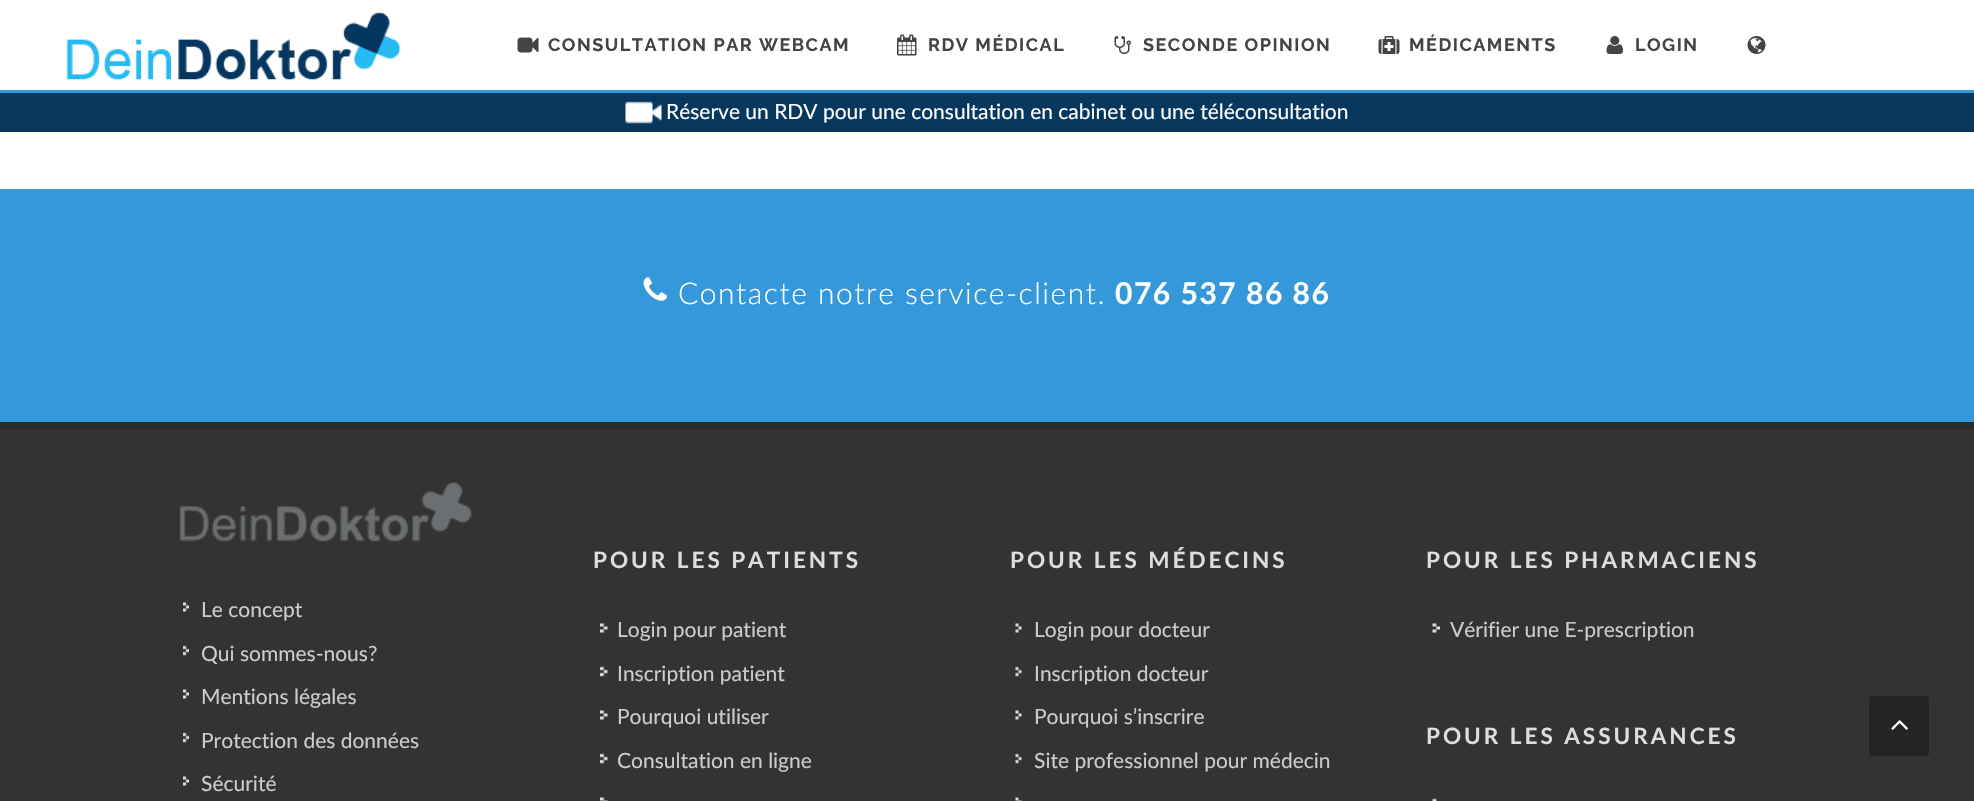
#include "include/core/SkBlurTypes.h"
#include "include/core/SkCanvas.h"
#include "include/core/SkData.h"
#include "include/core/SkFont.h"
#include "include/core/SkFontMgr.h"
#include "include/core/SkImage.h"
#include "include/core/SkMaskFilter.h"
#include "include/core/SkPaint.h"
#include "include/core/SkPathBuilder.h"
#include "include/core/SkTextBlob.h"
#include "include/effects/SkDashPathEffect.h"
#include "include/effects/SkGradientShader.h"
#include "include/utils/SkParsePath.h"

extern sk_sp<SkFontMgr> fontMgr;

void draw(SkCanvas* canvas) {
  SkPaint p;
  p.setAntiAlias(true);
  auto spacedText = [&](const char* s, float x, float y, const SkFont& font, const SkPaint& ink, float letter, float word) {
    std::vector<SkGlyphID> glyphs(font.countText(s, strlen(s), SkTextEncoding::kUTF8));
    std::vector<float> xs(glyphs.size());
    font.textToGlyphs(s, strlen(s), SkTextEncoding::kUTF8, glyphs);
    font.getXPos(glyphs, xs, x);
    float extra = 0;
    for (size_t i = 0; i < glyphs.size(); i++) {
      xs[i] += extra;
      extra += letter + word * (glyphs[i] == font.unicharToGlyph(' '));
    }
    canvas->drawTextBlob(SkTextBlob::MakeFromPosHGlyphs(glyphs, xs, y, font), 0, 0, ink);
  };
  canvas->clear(SK_ColorWHITE);
  canvas->drawImageRect(SkImages::DeferredFromEncodedData(SkData::MakeFromFileName("images/1.png")), SkRect::MakeLTRB(66, 12, 401, 80), SkSamplingOptions());
  canvas->drawImageRect(SkImages::DeferredFromEncodedData(SkData::MakeFromFileName("images/2.png")), SkRect::MakeLTRB(517, 37, 539, 53), SkSamplingOptions());
  canvas->drawImageRect(SkImages::DeferredFromEncodedData(SkData::MakeFromFileName("images/3.png")), SkRect::MakeLTRB(897, 34, 917, 56), SkSamplingOptions());
  canvas->drawImageRect(SkImages::DeferredFromEncodedData(SkData::MakeFromFileName("images/4.png")), SkRect::MakeLTRB(1114, 36, 1131, 54), SkSamplingOptions());
  canvas->drawImageRect(SkImages::DeferredFromEncodedData(SkData::MakeFromFileName("images/5.png")), SkRect::MakeLTRB(1378, 36, 1400, 54), SkSamplingOptions());
  canvas->drawImageRect(SkImages::DeferredFromEncodedData(SkData::MakeFromFileName("images/6.png")), SkRect::MakeLTRB(1606, 36, 1623, 54), SkSamplingOptions());
  canvas->drawImageRect(SkImages::DeferredFromEncodedData(SkData::MakeFromFileName("images/7.png")), SkRect::MakeLTRB(1747, 36, 1766, 54), SkSamplingOptions());
  p.setColor(SkColorSetRGB(8, 55, 94));
  canvas->drawRect(SkRect::MakeLTRB(0, 93, 1974, 132), p);
  p.setColor(SkColorSetRGB(52, 152, 219));
  canvas->drawRect(SkRect::MakeLTRB(0, 90, 1974, 93), p);
  canvas->drawImageRect(SkImages::DeferredFromEncodedData(SkData::MakeFromFileName("images/8.png")), SkRect::MakeLTRB(625, 101, 662, 124), SkSamplingOptions());
  canvas->drawRect(SkRect::MakeLTRB(0, 189, 1974, 422), p);
  canvas->drawImageRect(SkImages::DeferredFromEncodedData(SkData::MakeFromFileName("images/9.png")), SkRect::MakeLTRB(643, 277, 667, 301), SkSamplingOptions());
  p.setColor(SkColorSetRGB(51, 51, 51));
  canvas->drawRect(SkRect::MakeLTRB(0, 429, 1974, 801), p);
  p.setColor(SkColorSetRGB(41, 41, 41));
  canvas->drawRect(SkRect::MakeLTRB(0, 422, 1974, 429), p);
  canvas->drawImageRect(SkImages::DeferredFromEncodedData(SkData::MakeFromFileName("images/10.png")), SkRect::MakeLTRB(179, 482, 472, 542), SkSamplingOptions());
  canvas->drawImageRect(SkImages::DeferredFromEncodedData(SkData::MakeFromFileName("images/11.png")), SkRect::MakeLTRB(183, 602, 189, 612), SkSamplingOptions());
  canvas->drawImageRect(SkImages::DeferredFromEncodedData(SkData::MakeFromFileName("images/12.png")), SkRect::MakeLTRB(183, 645, 189, 656), SkSamplingOptions());
  canvas->drawImageRect(SkImages::DeferredFromEncodedData(SkData::MakeFromFileName("images/11.png")), SkRect::MakeLTRB(183, 689, 189, 699), SkSamplingOptions());
  canvas->drawImageRect(SkImages::DeferredFromEncodedData(SkData::MakeFromFileName("images/12.png")), SkRect::MakeLTRB(183, 732, 189, 743), SkSamplingOptions());
  canvas->drawImageRect(SkImages::DeferredFromEncodedData(SkData::MakeFromFileName("images/11.png")), SkRect::MakeLTRB(183, 776, 189, 786), SkSamplingOptions());
  canvas->drawImageRect(SkImages::DeferredFromEncodedData(SkData::MakeFromFileName("images/13.png")), SkRect::MakeLTRB(600, 623, 608, 633), SkSamplingOptions());
  canvas->drawImageRect(SkImages::DeferredFromEncodedData(SkData::MakeFromFileName("images/14.png")), SkRect::MakeLTRB(600, 666, 608, 677), SkSamplingOptions());
  canvas->drawImageRect(SkImages::DeferredFromEncodedData(SkData::MakeFromFileName("images/13.png")), SkRect::MakeLTRB(600, 710, 608, 720), SkSamplingOptions());
  canvas->drawImageRect(SkImages::DeferredFromEncodedData(SkData::MakeFromFileName("images/14.png")), SkRect::MakeLTRB(600, 753, 608, 764), SkSamplingOptions());
  canvas->drawImageRect(SkImages::DeferredFromEncodedData(SkData::MakeFromFileName("images/15.png")), SkRect::MakeLTRB(600, 797, 608, 801), SkSamplingOptions());
  canvas->drawImageRect(SkImages::DeferredFromEncodedData(SkData::MakeFromFileName("images/16.png")), SkRect::MakeLTRB(1015, 623, 1022, 633), SkSamplingOptions());
  canvas->drawImageRect(SkImages::DeferredFromEncodedData(SkData::MakeFromFileName("images/17.png")), SkRect::MakeLTRB(1015, 666, 1022, 677), SkSamplingOptions());
  canvas->drawImageRect(SkImages::DeferredFromEncodedData(SkData::MakeFromFileName("images/16.png")), SkRect::MakeLTRB(1015, 710, 1022, 720), SkSamplingOptions());
  canvas->drawImageRect(SkImages::DeferredFromEncodedData(SkData::MakeFromFileName("images/17.png")), SkRect::MakeLTRB(1015, 753, 1022, 764), SkSamplingOptions());
  canvas->drawImageRect(SkImages::DeferredFromEncodedData(SkData::MakeFromFileName("images/18.png")), SkRect::MakeLTRB(1015, 797, 1022, 801), SkSamplingOptions());
  canvas->drawImageRect(SkImages::DeferredFromEncodedData(SkData::MakeFromFileName("images/19.png")), SkRect::MakeLTRB(1432, 623, 1440, 633), SkSamplingOptions());
  canvas->drawImageRect(SkImages::DeferredFromEncodedData(SkData::MakeFromFileName("images/20.png")), SkRect::MakeLTRB(1432, 798, 1437, 801), SkSamplingOptions());
  p.setColor(SkColorSetRGB(36, 36, 36));
  canvas->drawRoundRect(SkRect::MakeLTRB(1869, 696, 1929, 756), 3, 3, p);
  canvas->drawImageRect(SkImages::DeferredFromEncodedData(SkData::MakeFromFileName("images/21.png")), SkRect::MakeLTRB(1891, 720, 1908, 730), SkSamplingOptions());
  SkFont font1(fontMgr->matchFamilyStyle("Raleway", SkFontStyle::Bold()), 18);
  font1.setSubpixel(true);
  p.setColor(SkColorSetRGB(68, 68, 68));
  spacedText("CONSULTATION PAR WEBCAM", 548, 51, font1, p, 1.5f, 0);
  spacedText("RDV MÉDICAL", 928, 51, font1, p, 1.5f, 0);
  spacedText("SECONDE OPINION", 1143, 51, font1, p, 1.5f, 0);
  spacedText("MÉDICAMENTS", 1409, 51, font1, p, 1.5f, 0);
  spacedText("LOGIN", 1635, 51, font1, p, 1.5f, 0);
  SkFont font2(fontMgr->matchFamilyStyle("Lato", SkFontStyle::Normal()), 21);
  font2.setSubpixel(true);
  p.setColor(SK_ColorWHITE);
  canvas->drawString("Réserve un RDV pour une consultation en cabinet ou une téléconsultation", 666, 119, font2, p);
  SkFont font3(fontMgr->matchFamilyStyle("Lato", SkFontStyle(300, SkFontStyle::kNormal_Width, SkFontStyle::kUpright_Slant)), 30);
  font3.setSubpixel(true);
  spacedText("Contacte notre service-client.", 678, 304, font3, p, 1.5f, 0);
  SkFont font4(fontMgr->matchFamilyStyle("Lato", SkFontStyle::Bold()), 30);
  font4.setSubpixel(true);
  spacedText("076 537 86 86", 1115, 304, font4, p, 1.5f, 0);
  p.setColor(SkColorSetRGB(204, 204, 204));
  canvas->drawString("Le concept", 201, 617, font2, p);
  canvas->drawString("Qui sommes-nous?", 201, 661, font2, p);
  canvas->drawString("Mentions légales", 201, 704, font2, p);
  canvas->drawString("Protection des données", 201, 748, font2, p);
  canvas->drawString("Sécurité", 201, 791, font2, p);
  SkFont font5(fontMgr->matchFamilyStyle("Lato", SkFontStyle::Bold()), 22.5f);
  font5.setSubpixel(true);
  p.setColor(SkColorSetRGB(221, 221, 221));
  spacedText("POUR LES PATIENTS", 593, 568, font5, p, 3, 0);
  p.setColor(SkColorSetRGB(204, 204, 204));
  canvas->drawString("Login pour patient", 617, 637, font2, p);
  canvas->drawString("Inscription patient", 617, 681, font2, p);
  canvas->drawString("Pourquoi utiliser", 617, 724, font2, p);
  canvas->drawString("Consultation en ligne", 617, 768, font2, p);
  p.setColor(SkColorSetRGB(221, 221, 221));
  spacedText("POUR LES MÉDECINS", 1010, 568, font5, p, 3, 0);
  p.setColor(SkColorSetRGB(204, 204, 204));
  canvas->drawString("Login pour docteur", 1034, 637, font2, p);
  canvas->drawString("Inscription docteur", 1034, 681, font2, p);
  canvas->drawString("Pourquoi s’inscrire", 1034, 724, font2, p);
  canvas->drawString("Site professionnel pour médecin", 1034, 768, font2, p);
  p.setColor(SkColorSetRGB(221, 221, 221));
  spacedText("POUR LES PHARMACIENS", 1426, 568, font5, p, 3, 0);
  p.setColor(SkColorSetRGB(204, 204, 204));
  canvas->drawString("Vérifier une E-prescription", 1450, 637, font2, p);
  p.setColor(SkColorSetRGB(221, 221, 221));
  spacedText("POUR LES ASSURANCES", 1426, 744, font5, p, 3, 0);
}
